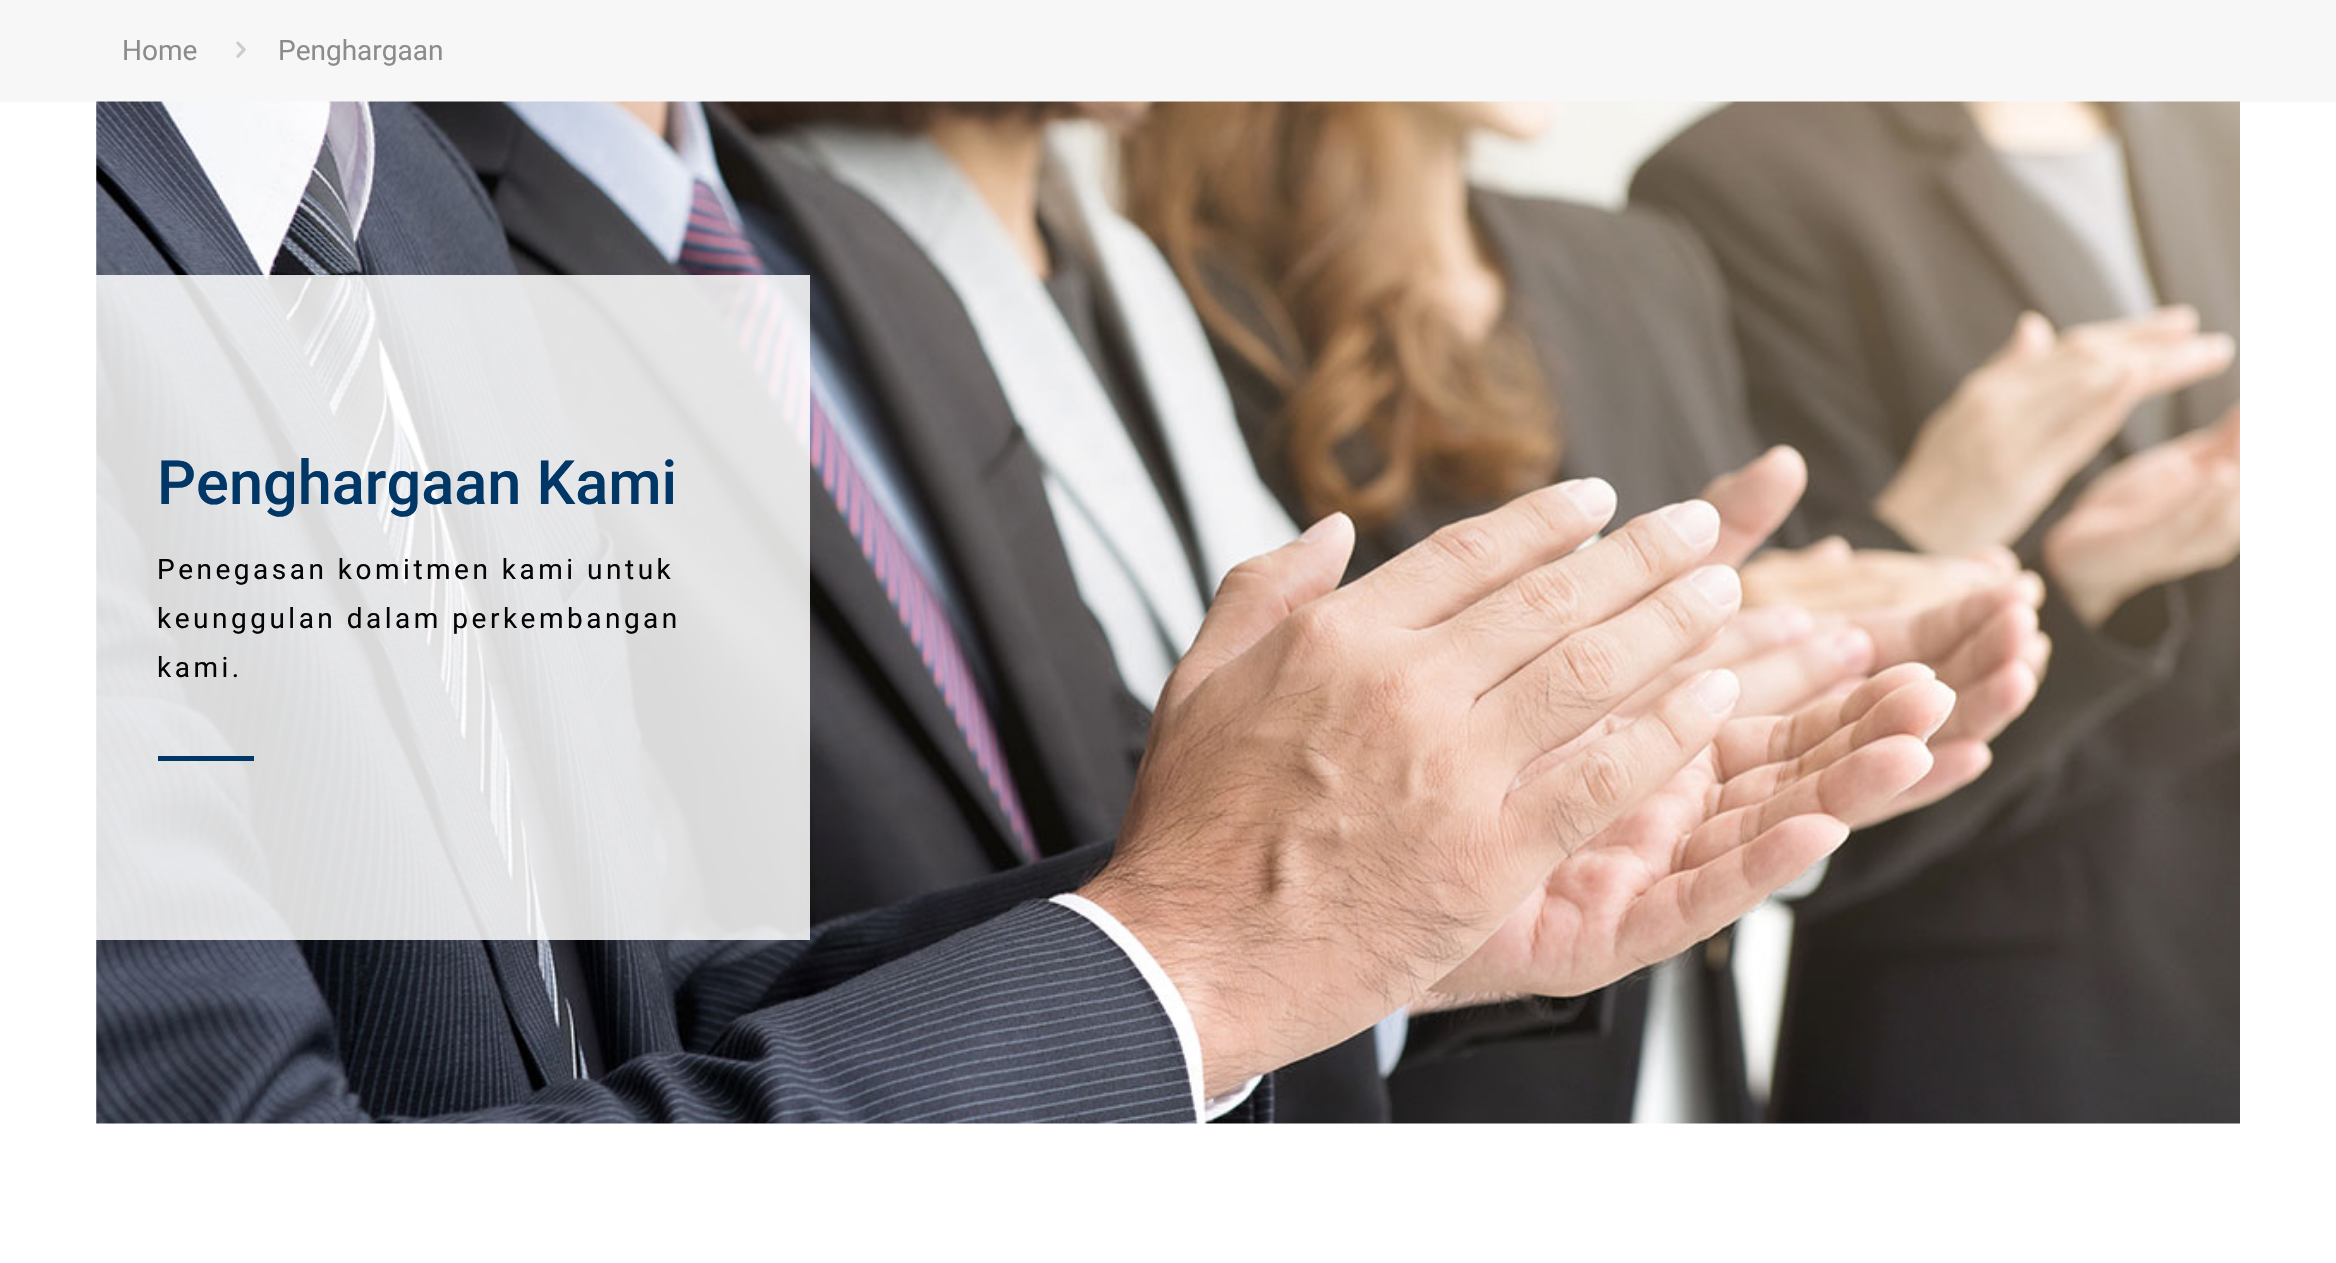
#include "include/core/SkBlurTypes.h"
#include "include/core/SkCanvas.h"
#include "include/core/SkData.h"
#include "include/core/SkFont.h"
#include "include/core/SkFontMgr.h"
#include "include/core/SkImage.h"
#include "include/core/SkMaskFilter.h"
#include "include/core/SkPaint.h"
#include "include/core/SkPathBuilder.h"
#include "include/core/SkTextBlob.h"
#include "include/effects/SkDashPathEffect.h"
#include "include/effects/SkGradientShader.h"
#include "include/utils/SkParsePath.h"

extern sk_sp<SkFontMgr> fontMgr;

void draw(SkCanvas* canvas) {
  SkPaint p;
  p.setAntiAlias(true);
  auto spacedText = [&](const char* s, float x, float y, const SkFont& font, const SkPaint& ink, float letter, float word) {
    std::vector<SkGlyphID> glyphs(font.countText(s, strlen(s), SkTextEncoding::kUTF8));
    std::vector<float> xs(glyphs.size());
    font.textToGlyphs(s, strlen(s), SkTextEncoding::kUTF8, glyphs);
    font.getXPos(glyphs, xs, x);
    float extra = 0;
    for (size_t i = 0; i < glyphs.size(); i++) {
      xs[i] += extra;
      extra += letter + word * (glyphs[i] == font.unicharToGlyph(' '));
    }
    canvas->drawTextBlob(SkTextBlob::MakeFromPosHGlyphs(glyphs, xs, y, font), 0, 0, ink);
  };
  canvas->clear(SK_ColorWHITE);
  p.setColor(SkColorSetRGB(247, 247, 247));
  canvas->drawRect(SkRect::MakeLTRB(0, 0, 2336, 102), p);
  canvas->drawImageRect(SkImages::DeferredFromEncodedData(SkData::MakeFromFileName("images/1.png")), SkRect::MakeLTRB(236, 41, 246, 58), SkSamplingOptions());
  canvas->drawImageRect(SkImages::DeferredFromEncodedData(SkData::MakeFromFileName("images/2.png")), SkRect::MakeLTRB(96, 101, 2240, 1124), SkSamplingOptions());
  p.setColor(SkColorSetARGB(217, 255, 255, 255));
  canvas->drawRect(SkRect::MakeLTRB(96, 275, 810, 940), p);
  p.setColor(SkColorSetRGB(0, 55, 103));
  canvas->drawRect(SkRect::MakeLTRB(158, 756, 254, 761), p);
  SkFont font1(fontMgr->matchFamilyStyle("Roboto", SkFontStyle::Normal()), 28);
  font1.setSubpixel(true);
  p.setColor(SkColorSetRGB(140, 140, 140));
  canvas->drawString("Home", 122, 60, font1, p);
  canvas->drawString("Penghargaan", 278, 60, font1, p);
  SkFont font2(fontMgr->matchFamilyStyle("Roboto", SkFontStyle(500, SkFontStyle::kNormal_Width, SkFontStyle::kUpright_Slant)), 61.25f);
  font2.setSubpixel(true);
  p.setColor(SkColorSetRGB(0, 55, 103));
  canvas->drawString("Penghargaan Kami", 157, 504, font2, p);
  p.setColor(SkColorSetRGB(5, 5, 5));
  spacedText("Penegasan komitmen kami untuk", 157, 579, font1, p, 3.5f, 0);
  spacedText("keunggulan dalam perkembangan", 157, 628, font1, p, 3.5f, 0);
  spacedText("kami.", 157, 677, font1, p, 3.5f, 0);
}
